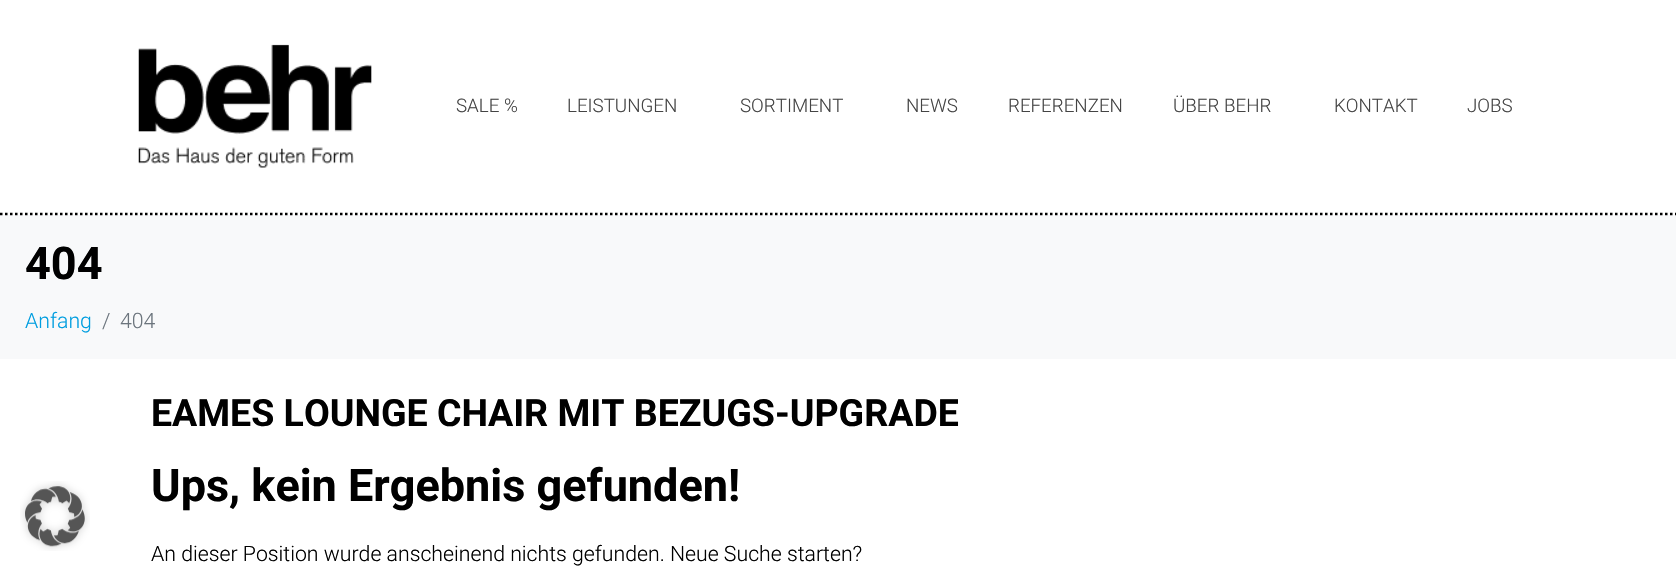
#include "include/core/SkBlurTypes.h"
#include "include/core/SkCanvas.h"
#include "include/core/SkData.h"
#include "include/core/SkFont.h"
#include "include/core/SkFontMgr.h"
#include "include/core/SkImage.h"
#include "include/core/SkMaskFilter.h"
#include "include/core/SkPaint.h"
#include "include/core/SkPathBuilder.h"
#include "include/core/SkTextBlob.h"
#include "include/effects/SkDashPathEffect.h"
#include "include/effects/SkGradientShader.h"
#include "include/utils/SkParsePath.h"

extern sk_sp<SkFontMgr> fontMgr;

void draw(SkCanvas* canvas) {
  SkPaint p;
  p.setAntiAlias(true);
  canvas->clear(SK_ColorWHITE);
  p.setColor(SkColorSetRGB(248, 249, 250));
  canvas->drawRect(SkRect::MakeLTRB(0, 215, 1676, 359), p);
  p.setStyle(SkPaint::kStroke_Style);
  p.setStrokeWidth(2.5f);
  p.setColor(SK_ColorBLACK);
  p.setPathEffect(SkDashPathEffect::Make({{2.5f, 2.5f}}, 0));
  canvas->drawPath(SkPathBuilder().moveTo(0, 214).lineTo(1676, 214).detach(), p);
  p.setPathEffect(nullptr);
  canvas->drawImageRect(SkImages::DeferredFromEncodedData(SkData::MakeFromFileName("images/1.png")), SkRect::MakeLTRB(138, 44, 372, 168), SkSamplingOptions());
  canvas->drawImageRect(SkImages::DeferredFromEncodedData(SkData::MakeFromFileName("images/2.png")), SkRect::MakeLTRB(20, 481, 90, 551), SkSamplingOptions());
  SkFont font1(fontMgr->matchFamilyStyle("Roboto", SkFontStyle(300, SkFontStyle::kNormal_Width, SkFontStyle::kUpright_Slant)), 18.75f);
  font1.setSubpixel(true);
  p.setStyle(SkPaint::kFill_Style);
  p.setColor(SkColorSetRGB(68, 68, 68));
  canvas->drawString("SALE %", 456, 112, font1, p);
  canvas->drawString("LEISTUNGEN", 567, 112, font1, p);
  canvas->drawString("SORTIMENT", 740, 112, font1, p);
  canvas->drawString("NEWS", 906, 112, font1, p);
  canvas->drawString("REFERENZEN", 1008, 112, font1, p);
  canvas->drawString("ÜBER BEHR", 1173, 112, font1, p);
  canvas->drawString("KONTAKT", 1334, 112, font1, p);
  canvas->drawString("JOBS", 1467, 112, font1, p);
  SkFont font2(fontMgr->matchFamilyStyle("Roboto", SkFontStyle::Bold()), 45);
  font2.setSubpixel(true);
  p.setColor(SK_ColorBLACK);
  canvas->drawString("404", 25, 279, font2, p);
  SkFont font3(fontMgr->matchFamilyStyle("Roboto", SkFontStyle(300, SkFontStyle::kNormal_Width, SkFontStyle::kUpright_Slant)), 21.25f);
  font3.setSubpixel(true);
  p.setColor(SkColorSetRGB(0, 158, 224));
  canvas->drawString("Anfang", 25, 328, font3, p);
  p.setColor(SkColorSetRGB(108, 117, 125));
  canvas->drawString("/", 102, 328, font3, p);
  canvas->drawString("404", 120, 328, font3, p);
  SkFont font4(fontMgr->matchFamilyStyle("Roboto", SkFontStyle::Bold()), 37.5f);
  font4.setSubpixel(true);
  p.setColor(SK_ColorBLACK);
  canvas->drawString("EAMES LOUNGE CHAIR MIT BEZUGS-UPGRADE", 151, 426, font4, p);
  canvas->drawString("Ups, kein Ergebnis gefunden!", 151, 501, font2, p);
  canvas->drawString("An dieser Position wurde anscheinend nichts gefunden. Neue Suche starten?", 151, 561, font3, p);
}
